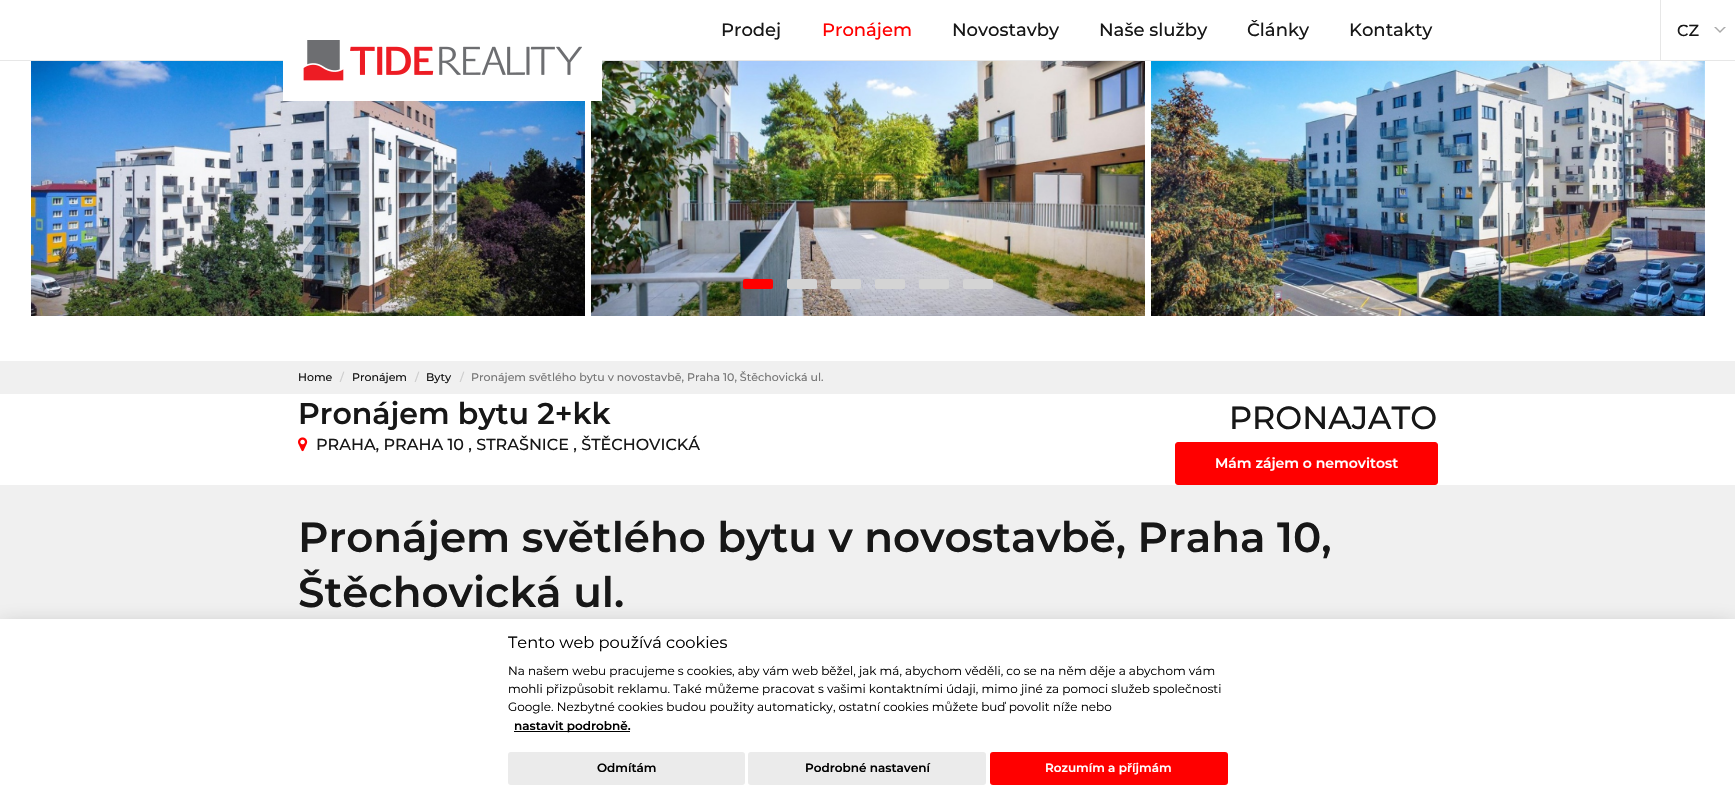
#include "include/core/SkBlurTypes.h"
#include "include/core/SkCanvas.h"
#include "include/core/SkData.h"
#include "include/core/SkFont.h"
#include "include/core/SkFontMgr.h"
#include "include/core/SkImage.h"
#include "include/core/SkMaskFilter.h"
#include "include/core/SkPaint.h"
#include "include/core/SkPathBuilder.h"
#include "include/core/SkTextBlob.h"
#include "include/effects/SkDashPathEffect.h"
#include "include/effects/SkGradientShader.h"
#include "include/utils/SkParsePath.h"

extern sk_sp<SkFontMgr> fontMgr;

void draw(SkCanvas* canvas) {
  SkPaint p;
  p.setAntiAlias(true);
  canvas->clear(SK_ColorWHITE);
  p.setColor(SkColorSetRGB(231, 231, 231));
  canvas->drawRect(SkRect::MakeLTRB(0, 60, 1735, 61), p);
  canvas->drawRect(SkRect::MakeLTRB(1660, 0, 1661, 60), p);
  p.setColor(SkColorSetRGB(169, 169, 169));
  canvas->drawPath(SkPathBuilder().moveTo(1714, 27).lineTo(1726, 27).lineTo(1720, 33).close().detach(), p);
  p.setColor(SK_ColorWHITE);
  canvas->drawPath(SkPathBuilder().moveTo(1714, 25).lineTo(1726, 25).lineTo(1720, 31).close().detach(), p);
  canvas->drawImageRect(SkImages::DeferredFromEncodedData(SkData::MakeFromFileName("images/2.png")), SkRect::MakeLTRB(31, 61, 585, 316), SkSamplingOptions());
  canvas->drawImageRect(SkImages::DeferredFromEncodedData(SkData::MakeFromFileName("images/3.png")), SkRect::MakeLTRB(591, 61, 1145, 316), SkSamplingOptions());
  canvas->drawRect(SkRect::MakeLTRB(283, 60, 602, 101), p);
  canvas->drawImageRect(SkImages::DeferredFromEncodedData(SkData::MakeFromFileName("images/1.png")), SkRect::MakeLTRB(303, 40, 582, 81), SkSamplingOptions());
  canvas->drawImageRect(SkImages::DeferredFromEncodedData(SkData::MakeFromFileName("images/4.png")), SkRect::MakeLTRB(1151, 61, 1705, 316), SkSamplingOptions());
  p.setColor(SkColorSetRGB(255, 0, 0));
  canvas->drawRoundRect(SkRect::MakeLTRB(743, 279, 773, 289), 2, 2, p);
  p.setColor(SkColorSetRGB(212, 212, 212));
  canvas->drawRoundRect(SkRect::MakeLTRB(787, 279, 817, 289), 2, 2, p);
  canvas->drawRoundRect(SkRect::MakeLTRB(831, 279, 861, 289), 2, 2, p);
  canvas->drawRoundRect(SkRect::MakeLTRB(875, 279, 905, 289), 2, 2, p);
  canvas->drawRoundRect(SkRect::MakeLTRB(919, 279, 949, 289), 2, 2, p);
  canvas->drawRoundRect(SkRect::MakeLTRB(963, 279, 993, 289), 2, 2, p);
  p.setColor(SkColorSetRGB(240, 240, 240));
  canvas->drawRect(SkRect::MakeLTRB(0, 361, 1735, 394), p);
  canvas->drawImageRect(SkImages::DeferredFromEncodedData(SkData::MakeFromFileName("images/5.png")), SkRect::MakeLTRB(298, 437, 308, 452), SkSamplingOptions());
  p.setColor(SkColorSetRGB(255, 0, 0));
  canvas->drawRoundRect(SkRect::MakeLTRB(1175.5f, 442.5f, 1437.5f, 484.5f), 2.5f, 2.5f, p);
  p.setStyle(SkPaint::kStroke_Style);
  p.setStrokeWidth(1);
  canvas->drawRoundRect(SkRect::MakeLTRB(1175.5f, 442.5f, 1437.5f, 484.5f), 2.5f, 2.5f, p);
  p.setStyle(SkPaint::kFill_Style);
  p.setColor(SkColorSetRGB(240, 240, 240));
  canvas->drawRect(SkRect::MakeLTRB(0, 485, 1735, 619), p);
  p.setColor(SkColorSetARGB(71, 2, 2, 3));
  p.setMaskFilter(SkMaskFilter::MakeBlur(kNormal_SkBlurStyle, 11));
  canvas->drawRect(SkRect::MakeLTRB(0, 627, 1735, 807), p);
  p.setMaskFilter(nullptr);
  p.setColor(SK_ColorWHITE);
  canvas->drawRect(SkRect::MakeLTRB(0, 619, 1735, 799), p);
  p.setColor(SK_ColorBLACK);
  canvas->drawRect(SkRect::MakeLTRB(514, 731, 630, 732), p);
  p.setColor(SkColorSetRGB(235, 235, 235));
  canvas->drawRoundRect(SkRect::MakeLTRB(508, 752, 745, 785), 3, 3, p);
  canvas->drawRoundRect(SkRect::MakeLTRB(748, 752, 986, 785), 3, 3, p);
  p.setColor(SkColorSetRGB(255, 0, 0));
  canvas->drawRoundRect(SkRect::MakeLTRB(990, 752, 1228, 785), 3, 3, p);
  SkFont font1(fontMgr->matchFamilyStyle("Montserrat", SkFontStyle(500, SkFontStyle::kNormal_Width, SkFontStyle::kUpright_Slant)), 18);
  font1.setSubpixel(true);
  p.setColor(SkColorSetRGB(23, 23, 23));
  canvas->drawString("Prodej", 721, 36, font1, p);
  p.setColor(SkColorSetRGB(255, 0, 0));
  canvas->drawString("Pronájem", 822, 36, font1, p);
  p.setColor(SkColorSetRGB(23, 23, 23));
  canvas->drawString("Novostavby", 952, 36, font1, p);
  canvas->drawString("Naše služby", 1099, 36, font1, p);
  canvas->drawString("Články", 1247, 36, font1, p);
  canvas->drawString("Kontakty", 1349, 36, font1, p);
  SkFont font2(fontMgr->matchFamilyStyle("Montserrat", SkFontStyle(500, SkFontStyle::kNormal_Width, SkFontStyle::kUpright_Slant)), 16);
  font2.setSubpixel(true);
  canvas->drawString("CZ", 1677, 36, font2, p);
  SkFont font3(fontMgr->matchFamilyStyle("Montserrat", SkFontStyle(500, SkFontStyle::kNormal_Width, SkFontStyle::kUpright_Slant)), 11);
  font3.setSubpixel(true);
  canvas->drawString("Home", 298, 381, font3, p);
  p.setColor(SkColorSetRGB(204, 204, 204));
  canvas->drawString("/", 340, 381, font3, p);
  p.setColor(SkColorSetRGB(23, 23, 23));
  canvas->drawString("Pronájem", 352, 381, font3, p);
  p.setColor(SkColorSetRGB(204, 204, 204));
  canvas->drawString("/", 415, 381, font3, p);
  p.setColor(SkColorSetRGB(23, 23, 23));
  canvas->drawString("Byty", 426, 381, font3, p);
  p.setColor(SkColorSetRGB(204, 204, 204));
  canvas->drawString("/", 460, 381, font3, p);
  p.setColor(SkColorSetRGB(119, 119, 119));
  canvas->drawString("Pronájem světlého bytu v novostavbě, Praha 10, Štěchovická ul.", 471, 381, font3, p);
  SkFont font4(fontMgr->matchFamilyStyle("Montserrat", SkFontStyle(600, SkFontStyle::kNormal_Width, SkFontStyle::kUpright_Slant)), 30);
  font4.setSubpixel(true);
  p.setColor(SkColorSetRGB(23, 23, 23));
  canvas->drawString("Pronájem bytu 2+kk", 298, 424, font4, p);
  canvas->drawString("PRAHA, PRAHA 10 , STRAŠNICE , ŠTĚCHOVICKÁ", 316, 450, font2, p);
  SkFont font5(fontMgr->matchFamilyStyle("Montserrat", SkFontStyle(500, SkFontStyle::kNormal_Width, SkFontStyle::kUpright_Slant)), 32);
  font5.setSubpixel(true);
  canvas->drawString("PRONAJATO", 1229, 429, font5, p);
  SkFont font6(fontMgr->matchFamilyStyle("Montserrat", SkFontStyle(600, SkFontStyle::kNormal_Width, SkFontStyle::kUpright_Slant)), 14);
  font6.setSubpixel(true);
  p.setColor(SK_ColorWHITE);
  canvas->drawString("Mám zájem o nemovitost", 1215, 468, font6, p);
  SkFont font7(fontMgr->matchFamilyStyle("Montserrat", SkFontStyle(600, SkFontStyle::kNormal_Width, SkFontStyle::kUpright_Slant)), 42);
  font7.setSubpixel(true);
  p.setColor(SkColorSetRGB(23, 23, 23));
  canvas->drawString("Pronájem světlého bytu v novostavbě, Praha 10,", 298, 552, font7, p);
  canvas->drawString("Štěchovická ul.", 298, 607, font7, p);
  SkFont font8(fontMgr->matchFamilyStyle("Montserrat", SkFontStyle::Normal()), 16.25f);
  font8.setSubpixel(true);
  p.setColor(SK_ColorBLACK);
  canvas->drawString("Tento web používá cookies", 508, 648, font8, p);
  SkFont font9(fontMgr->matchFamilyStyle("Montserrat", SkFontStyle::Normal()), 12);
  font9.setSubpixel(true);
  canvas->drawString("Na našem webu pracujeme s cookies, aby vám web běžel, jak má, abychom věděli, co se na něm děje a abychom vám", 508, 675, font9, p);
  canvas->drawString("mohli přizpůsobit reklamu. Také můžeme pracovat s vašimi kontaktními údaji, mimo jiné za pomoci služeb společnosti", 508, 693, font9, p);
  canvas->drawString("Google. Nezbytné cookies budou použity automaticky, ostatní cookies můžete buď povolit níže nebo", 508, 711, font9, p);
  SkFont font10(fontMgr->matchFamilyStyle("Montserrat", SkFontStyle(600, SkFontStyle::kNormal_Width, SkFontStyle::kUpright_Slant)), 12);
  font10.setSubpixel(true);
  canvas->drawString("nastavit podrobně.", 514, 730, font10, p);
  canvas->drawString("Odmítám", 597, 772, font10, p);
  canvas->drawString("Podrobné nastavení", 805, 772, font10, p);
  p.setColor(SK_ColorWHITE);
  canvas->drawString("Rozumím a příjmám", 1045, 772, font10, p);
}
